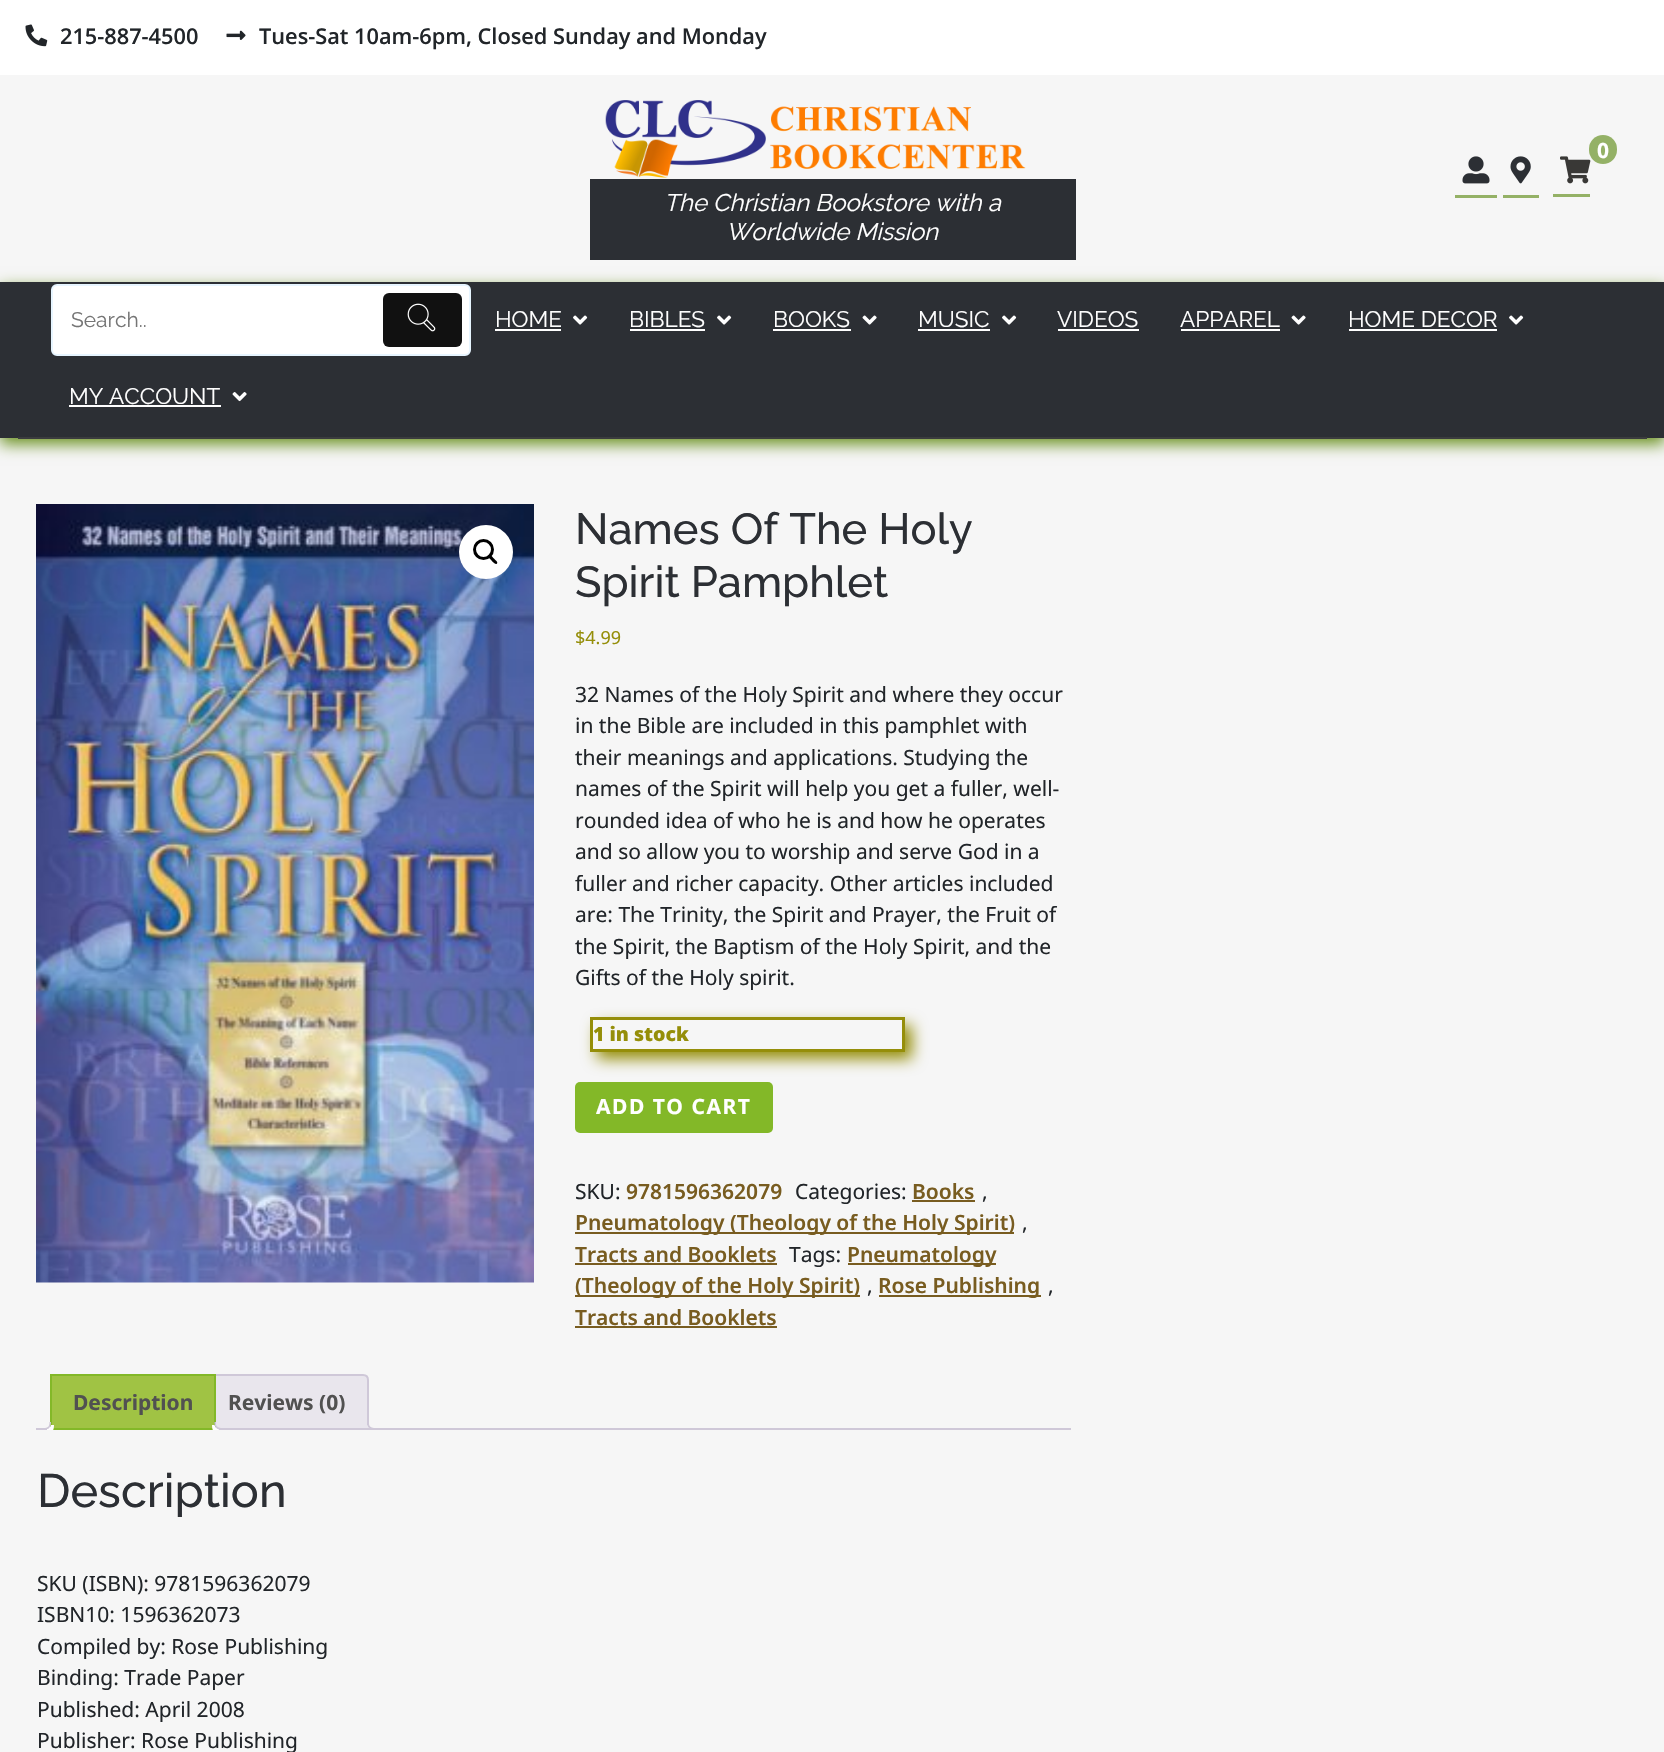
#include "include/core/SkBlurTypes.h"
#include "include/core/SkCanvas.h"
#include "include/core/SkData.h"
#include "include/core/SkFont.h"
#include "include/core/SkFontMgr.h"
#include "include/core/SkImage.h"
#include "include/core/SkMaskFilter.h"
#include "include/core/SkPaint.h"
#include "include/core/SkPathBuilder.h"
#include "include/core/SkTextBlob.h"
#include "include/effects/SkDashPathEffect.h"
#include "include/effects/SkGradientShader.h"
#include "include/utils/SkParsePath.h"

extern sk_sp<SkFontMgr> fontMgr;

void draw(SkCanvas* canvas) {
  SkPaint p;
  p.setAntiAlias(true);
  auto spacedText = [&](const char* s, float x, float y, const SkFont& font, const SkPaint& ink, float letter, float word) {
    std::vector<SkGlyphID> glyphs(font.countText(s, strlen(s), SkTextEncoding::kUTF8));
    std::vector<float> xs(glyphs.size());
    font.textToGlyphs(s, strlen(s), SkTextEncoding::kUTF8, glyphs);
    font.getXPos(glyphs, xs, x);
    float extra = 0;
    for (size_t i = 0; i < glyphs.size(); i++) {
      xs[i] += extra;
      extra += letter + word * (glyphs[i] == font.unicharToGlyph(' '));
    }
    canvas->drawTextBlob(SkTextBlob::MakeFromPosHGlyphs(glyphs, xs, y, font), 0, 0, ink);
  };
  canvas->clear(SkColorSetRGB(246, 246, 246));
  p.setColor(SkColorSetRGB(44, 47, 52));
  canvas->drawRect(SkRect::MakeLTRB(0, 282, 1664, 438), p);
  p.setColor(SK_ColorWHITE);
  canvas->drawRect(SkRect::MakeLTRB(0, 0, 1664, 75), p);
  canvas->drawImageRect(SkImages::DeferredFromEncodedData(SkData::MakeFromFileName("images/1.png")), SkRect::MakeLTRB(25, 24, 48, 47), SkSamplingOptions());
  canvas->drawImageRect(SkImages::DeferredFromEncodedData(SkData::MakeFromFileName("images/2.png")), SkRect::MakeLTRB(226, 30, 246, 40), SkSamplingOptions());
  p.setColor(SkColorSetRGB(148, 177, 102));
  canvas->drawRect(SkRect::MakeLTRB(1553, 194, 1590, 197), p);
  canvas->drawImageRect(SkImages::DeferredFromEncodedData(SkData::MakeFromFileName("images/3.png")), SkRect::MakeLTRB(1560, 156, 1591, 184), SkSamplingOptions());
  canvas->drawRoundRect(SkRect::MakeLTRB(1589, 135, 1617, 164), 14, 14, p);
  canvas->drawRect(SkRect::MakeLTRB(1455, 195, 1497, 198), p);
  canvas->drawImageRect(SkImages::DeferredFromEncodedData(SkData::MakeFromFileName("images/4.png")), SkRect::MakeLTRB(1462, 156, 1490, 184), SkSamplingOptions());
  canvas->drawRect(SkRect::MakeLTRB(1503, 195, 1539, 198), p);
  canvas->drawImageRect(SkImages::DeferredFromEncodedData(SkData::MakeFromFileName("images/5.png")), SkRect::MakeLTRB(1510, 156, 1531, 184), SkSamplingOptions());
  canvas->drawImageRect(SkImages::DeferredFromEncodedData(SkData::MakeFromFileName("images/6.png")), SkRect::MakeLTRB(605, 100, 1026, 178), SkSamplingOptions());
  p.setColor(SkColorSetRGB(44, 47, 52));
  canvas->drawRect(SkRect::MakeLTRB(590, 179, 1076, 260), p);
  canvas->save();
  canvas->clipPath(SkPathBuilder(SkPathFillType::kEvenOdd).moveTo(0, 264).lineTo(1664, 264).lineTo(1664, 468).lineTo(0, 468).close().moveTo(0, 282).lineTo(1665, 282).lineTo(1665, 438).lineTo(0, 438).close().detach(), true);
  p.setColor(SkColorSetRGB(102, 142, 26));
  p.setMaskFilter(SkMaskFilter::MakeBlur(kNormal_SkBlurStyle, 7.5f));
  canvas->drawRect(SkRect::MakeLTRB(0, 288, 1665, 444), p);
  p.setMaskFilter(nullptr);
  canvas->restore();
  p.setColor(SkColorSetRGB(59, 60, 62));
  canvas->drawRect(SkRect::MakeLTRB(18, 437, 1647, 439), p);
  p.setColor(SK_ColorWHITE);
  canvas->drawRoundRect(SkRect::MakeLTRB(52, 285, 470, 355), 5, 5, p);
  p.setStyle(SkPaint::kStroke_Style);
  p.setStrokeWidth(2);
  p.setColor(SkColorSetRGB(231, 245, 255));
  canvas->drawRoundRect(SkRect::MakeLTRB(52, 285, 470, 355), 5, 5, p);
  p.setStyle(SkPaint::kFill_Style);
  p.setColor(SkColorSetRGB(17, 17, 17));
  canvas->drawRoundRect(SkRect::MakeLTRB(383, 293, 462, 347), 6, 6, p);
  canvas->drawImageRect(SkImages::DeferredFromEncodedData(SkData::MakeFromFileName("images/7.png")), SkRect::MakeLTRB(407, 303, 436, 332), SkSamplingOptions());
  p.setColor(SK_ColorWHITE);
  canvas->drawRect(SkRect::MakeLTRB(495, 329, 561, 331), p);
  canvas->drawImageRect(SkImages::DeferredFromEncodedData(SkData::MakeFromFileName("images/8.png")), SkRect::MakeLTRB(573, 315, 588, 325), SkSamplingOptions());
  canvas->drawRect(SkRect::MakeLTRB(630, 329, 705, 331), p);
  canvas->drawImageRect(SkImages::DeferredFromEncodedData(SkData::MakeFromFileName("images/8.png")), SkRect::MakeLTRB(717, 315, 732, 325), SkSamplingOptions());
  canvas->drawRect(SkRect::MakeLTRB(773, 329, 851, 331), p);
  canvas->drawImageRect(SkImages::DeferredFromEncodedData(SkData::MakeFromFileName("images/9.png")), SkRect::MakeLTRB(862, 315, 877, 325), SkSamplingOptions());
  canvas->drawRect(SkRect::MakeLTRB(918, 329, 990, 331), p);
  canvas->drawImageRect(SkImages::DeferredFromEncodedData(SkData::MakeFromFileName("images/8.png")), SkRect::MakeLTRB(1002, 315, 1017, 325), SkSamplingOptions());
  canvas->drawRect(SkRect::MakeLTRB(1058, 329, 1139, 331), p);
  canvas->drawRect(SkRect::MakeLTRB(1181, 329, 1280, 331), p);
  canvas->drawImageRect(SkImages::DeferredFromEncodedData(SkData::MakeFromFileName("images/9.png")), SkRect::MakeLTRB(1291, 315, 1306, 325), SkSamplingOptions());
  canvas->drawRect(SkRect::MakeLTRB(1349, 329, 1497, 331), p);
  canvas->drawImageRect(SkImages::DeferredFromEncodedData(SkData::MakeFromFileName("images/8.png")), SkRect::MakeLTRB(1509, 315, 1524, 325), SkSamplingOptions());
  canvas->drawRect(SkRect::MakeLTRB(69, 405, 221, 407), p);
  canvas->drawImageRect(SkImages::DeferredFromEncodedData(SkData::MakeFromFileName("images/10.png")), SkRect::MakeLTRB(232, 392, 247, 402), SkSamplingOptions());
  canvas->drawImageRect(SkImages::DeferredFromEncodedData(SkData::MakeFromFileName("images/11.png")), SkRect::MakeLTRB(36, 504, 534, 1283), SkSamplingOptions());
  canvas->drawCircle(486, 552, 27, p);
  p.setStyle(SkPaint::kStroke_Style);
  p.setStrokeWidth(3);
  p.setColor(SK_ColorBLACK);
  canvas->drawCircle(483.5f, 549.5f, 9, p);
  p.setStyle(SkPaint::kFill_Style);
  canvas->drawPath(SkPathBuilder().moveTo(488.5f, 555).cubicTo(490, 553.5f, 493, 557.5f, 494, 558.5f).cubicTo(494.5f, 559.5f, 498.5f, 562, 497, 563.5f).cubicTo(495.5f, 565.5f, 492.5f, 561.5f, 491.5f, 560.5f).cubicTo(491, 559.5f, 487, 557, 488.5f, 555).close().detach(), p);
  canvas->save();
  canvas->clipPath(SkPathBuilder(SkPathFillType::kEvenOdd).moveTo(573, 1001).lineTo(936, 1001).lineTo(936, 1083).lineTo(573, 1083).close().moveTo(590, 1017).lineTo(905, 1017).lineTo(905, 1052).lineTo(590, 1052).close().detach(), true);
  p.setColor(SkColorSetRGB(149, 142, 9));
  p.setMaskFilter(SkMaskFilter::MakeBlur(kNormal_SkBlurStyle, 7.5f));
  canvas->drawRect(SkRect::MakeLTRB(597, 1025, 912, 1059), p);
  p.setMaskFilter(nullptr);
  canvas->restore();
  p.setStyle(SkPaint::kStroke_Style);
  canvas->drawRect(SkRect::MakeLTRB(591.5f, 1018.5f, 903.5f, 1050.5f), p);
  p.setStyle(SkPaint::kFill_Style);
  p.setColor(SkColorSetRGB(131, 184, 40));
  canvas->drawRoundRect(SkRect::MakeLTRB(575, 1082, 773, 1133), 5, 5, p);
  p.setColor(SkColorSetRGB(120, 92, 32));
  canvas->drawRect(SkRect::MakeLTRB(912, 1200, 975, 1202), p);
  canvas->drawRect(SkRect::MakeLTRB(575, 1232, 1014, 1234), p);
  canvas->drawRect(SkRect::MakeLTRB(575, 1263, 777, 1265), p);
  canvas->drawRect(SkRect::MakeLTRB(848, 1263, 996, 1265), p);
  canvas->drawRect(SkRect::MakeLTRB(575, 1295, 860, 1297), p);
  canvas->drawRect(SkRect::MakeLTRB(879, 1295, 1041, 1297), p);
  canvas->drawRect(SkRect::MakeLTRB(575, 1326, 777, 1328), p);
  p.setColor(SkColorSetRGB(233, 230, 237));
  canvas->drawPath(SkPathBuilder().moveTo(212, 1375).lineTo(363, 1375).cubicTo(366, 1375, 368, 1377, 368, 1380).lineTo(368, 1429).lineTo(207, 1429).lineTo(207, 1380).cubicTo(207, 1377, 209, 1375, 212, 1375).close().detach(), p);
  p.setStyle(SkPaint::kStroke_Style);
  p.setStrokeWidth(2);
  p.setColor(SkColorSetRGB(207, 200, 216));
  canvas->drawPath(SkPathBuilder().moveTo(212, 1375).lineTo(363, 1375).cubicTo(366, 1375, 368, 1377, 368, 1380).lineTo(368, 1429).lineTo(207, 1429).lineTo(207, 1380).cubicTo(207, 1377, 209, 1375, 212, 1375).close().detach(), p);
  canvas->save();
  canvas->clipRect(SkRect::MakeLTRB(36, 1374, 1071, 1430));
  p.setStyle(SkPaint::kFill_Style);
  p.setColor(SkColorSetRGB(233, 230, 237));
  canvas->drawPath(SkPathBuilder().moveTo(365, 1425).cubicTo(365, 1430, 366.5f, 1433, 372, 1433).lineTo(372, 1429.5f).cubicTo(370, 1429, 368, 1427, 367.5f, 1425).close().detach(), p);
  canvas->restore();
  p.setColor(SkColorSetRGB(207, 200, 216));
  canvas->drawPath(SkPathBuilder(SkPathFillType::kEvenOdd).moveTo(367.5f, 1422).lineTo(375, 1422).lineTo(375, 1429.5f).cubicTo(371, 1429.5f, 367.5f, 1428, 367.5f, 1423.5f).close().moveTo(369, 1422).lineTo(375, 1422).lineTo(375, 1428).cubicTo(372, 1428, 369, 1427, 369, 1423.5f).close().detach(), p);
  canvas->drawRect(SkRect::MakeLTRB(36, 1428, 1071, 1430), p);
  p.setColor(SkColorSetRGB(160, 195, 68));
  canvas->drawRect(SkRect::MakeLTRB(51, 1375, 215, 1429), p);
  p.setStyle(SkPaint::kStroke_Style);
  p.setColor(SkColorSetRGB(131, 184, 40));
  canvas->drawRect(SkRect::MakeLTRB(51, 1375, 215, 1429), p);
  canvas->save();
  canvas->clipRect(SkRect::MakeLTRB(36, 1374, 1071, 1430));
  p.setStyle(SkPaint::kFill_Style);
  p.setColor(SK_ColorWHITE);
  canvas->drawPath(SkPathBuilder().moveTo(47, 1429).lineTo(47, 1433).cubicTo(52.5f, 1433, 54, 1430, 54, 1425).lineTo(51, 1425).cubicTo(50.5f, 1427, 49, 1428.5f, 47, 1429).close().detach(), p);
  canvas->restore();
  p.setColor(SkColorSetRGB(207, 200, 216));
  canvas->drawPath(SkPathBuilder(SkPathFillType::kEvenOdd).moveTo(43.5f, 1422).lineTo(51, 1422).cubicTo(51, 1427.5f, 49, 1429.5f, 43.5f, 1429.5f).close().moveTo(43.5f, 1422).lineTo(49.5f, 1422).cubicTo(49.5f, 1426.5f, 48, 1428, 43.5f, 1428).close().detach(), p);
  canvas->save();
  canvas->clipRect(SkRect::MakeLTRB(36, 1374, 1071, 1430));
  p.setColor(SK_ColorWHITE);
  canvas->drawPath(SkPathBuilder().moveTo(212, 1425).cubicTo(212, 1430, 213.5f, 1433, 219, 1433).lineTo(219, 1429.5f).cubicTo(217, 1429, 215, 1427, 214.5f, 1425).close().detach(), p);
  canvas->restore();
  p.setColor(SkColorSetRGB(207, 200, 216));
  canvas->drawPath(SkPathBuilder(SkPathFillType::kEvenOdd).moveTo(214.5f, 1422).lineTo(222, 1422).lineTo(222, 1429.5f).cubicTo(218, 1429.5f, 214.5f, 1428, 214.5f, 1423.5f).close().moveTo(216, 1422).lineTo(222, 1422).lineTo(222, 1428).cubicTo(219, 1428, 216, 1427, 216, 1423.5f).close().detach(), p);
  SkFont font1(fontMgr->matchFamilyStyle("Open Sans", SkFontStyle(600, SkFontStyle::kNormal_Width, SkFontStyle::kUpright_Slant)), 21.75f);
  font1.setSubpixel(true);
  p.setColor(SkColorSetRGB(33, 37, 41));
  canvas->drawString("215-887-4500", 60, 44, font1, p);
  canvas->drawString("Tues-Sat 10am-6pm, Closed Sunday and Monday", 259, 44, font1, p);
  SkFont font2(fontMgr->matchFamilyStyle("Noto Sans", SkFontStyle::Bold()), 21);
  font2.setSubpixel(true);
  p.setColor(SK_ColorWHITE);
  canvas->drawString("0", 1597, 158, font2, p);
  SkFont font3(fontMgr->matchFamilyStyle("Raleway", SkFontStyle::Italic()), 24);
  font3.setSubpixel(true);
  canvas->drawString("The Christian Bookstore with a", 664, 211, font3, p);
  canvas->drawString("Worldwide Mission", 726, 240, font3, p);
  SkFont font4(fontMgr->matchFamilyStyle("Raleway", SkFontStyle::Normal()), 21);
  font4.setSubpixel(true);
  p.setColor(SkColorSetRGB(117, 117, 117));
  canvas->drawString("Search..", 71, 327, font4, p);
  SkFont font5(fontMgr->matchFamilyStyle("Raleway", SkFontStyle::Normal()), 22.5f);
  font5.setSubpixel(true);
  p.setColor(SK_ColorWHITE);
  canvas->drawString("HOME", 495, 327, font5, p);
  canvas->drawString("BIBLES", 629, 327, font5, p);
  canvas->drawString("BOOKS", 773, 327, font5, p);
  canvas->drawString("MUSIC", 918, 327, font5, p);
  canvas->drawString("VIDEOS", 1057, 327, font5, p);
  canvas->drawString("APPAREL", 1180, 327, font5, p);
  canvas->drawString("HOME DECOR", 1348, 327, font5, p);
  canvas->drawString("MY ACCOUNT", 69, 404, font5, p);
  SkFont font6(fontMgr->matchFamilyStyle("Raleway", SkFontStyle(500, SkFontStyle::kNormal_Width, SkFontStyle::kUpright_Slant)), 43.5f);
  font6.setSubpixel(true);
  p.setColor(SkColorSetRGB(44, 47, 52));
  canvas->drawString("Names Of The Holy", 575, 544, font6, p);
  canvas->drawString("Spirit Pamphlet", 575, 597, font6, p);
  SkFont font7(fontMgr->matchFamilyStyle("Noto Sans", SkFontStyle::Normal()), 18);
  font7.setSubpixel(true);
  p.setColor(SkColorSetRGB(149, 142, 9));
  canvas->drawString("$4.99", 575, 644, font7, p);
  SkFont font8(fontMgr->matchFamilyStyle("Noto Sans", SkFontStyle::Normal()), 21);
  font8.setSubpixel(true);
  p.setColor(SkColorSetRGB(33, 37, 41));
  canvas->drawString("32 Names of the Holy Spirit and where they occur", 575, 702, font8, p);
  canvas->drawString("in the Bible are included in this pamphlet with", 575, 733, font8, p);
  canvas->drawString("their meanings and applications. Studying the", 575, 765, font8, p);
  canvas->drawString("names of the Spirit will help you get a fuller, well-", 575, 796, font8, p);
  canvas->drawString("rounded idea of who he is and how he operates", 575, 828, font8, p);
  canvas->drawString("and so allow you to worship and serve God in a", 575, 859, font8, p);
  canvas->drawString("fuller and richer capacity. Other articles included", 575, 891, font8, p);
  canvas->drawString("are: The Trinity, the Spirit and Prayer, the Fruit of", 575, 922, font8, p);
  canvas->drawString("the Spirit, the Baptism of the Holy Spirit, and the", 575, 954, font8, p);
  canvas->drawString("Gifts of the Holy spirit.", 575, 985, font8, p);
  SkFont font9(fontMgr->matchFamilyStyle("Noto Sans", SkFontStyle(900, SkFontStyle::kNormal_Width, SkFontStyle::kUpright_Slant)), 19.5f);
  font9.setSubpixel(true);
  p.setColor(SkColorSetRGB(149, 142, 9));
  canvas->drawString("1 in stock", 593, 1041, font9, p);
  p.setColor(SK_ColorWHITE);
  spacedText("ADD TO CART", 596, 1114, font2, p, 1.5f, 0);
  p.setColor(SkColorSetRGB(33, 37, 41));
  canvas->drawString("SKU:", 575, 1199, font8, p);
  SkFont font10(fontMgr->matchFamilyStyle("Noto Sans", SkFontStyle(600, SkFontStyle::kNormal_Width, SkFontStyle::kUpright_Slant)), 21);
  font10.setSubpixel(true);
  p.setColor(SkColorSetRGB(120, 92, 32));
  canvas->drawString("9781596362079", 626, 1199, font10, p);
  p.setColor(SkColorSetRGB(33, 37, 41));
  canvas->drawString("Categories:", 795, 1199, font8, p);
  p.setColor(SkColorSetRGB(120, 92, 32));
  canvas->drawString("Books", 912, 1199, font10, p);
  p.setColor(SkColorSetRGB(33, 37, 41));
  canvas->drawString(",", 982, 1199, font8, p);
  p.setColor(SkColorSetRGB(120, 92, 32));
  canvas->drawString("Pneumatology (Theology of the Holy Spirit)", 575, 1230, font10, p);
  p.setColor(SkColorSetRGB(33, 37, 41));
  canvas->drawString(",", 1022, 1230, font8, p);
  p.setColor(SkColorSetRGB(120, 92, 32));
  canvas->drawString("Tracts and Booklets", 575, 1262, font10, p);
  p.setColor(SkColorSetRGB(33, 37, 41));
  canvas->drawString("Tags:", 789, 1262, font8, p);
  p.setColor(SkColorSetRGB(120, 92, 32));
  canvas->drawString("Pneumatology", 847, 1262, font10, p);
  canvas->drawString("(Theology of the Holy Spirit)", 575, 1293, font10, p);
  p.setColor(SkColorSetRGB(33, 37, 41));
  canvas->drawString(",", 867, 1293, font8, p);
  p.setColor(SkColorSetRGB(120, 92, 32));
  canvas->drawString("Rose Publishing", 878, 1293, font10, p);
  p.setColor(SkColorSetRGB(33, 37, 41));
  canvas->drawString(",", 1048, 1293, font8, p);
  p.setColor(SkColorSetRGB(120, 92, 32));
  canvas->drawString("Tracts and Booklets", 575, 1325, font10, p);
  p.setColor(SkColorSetRGB(81, 81, 81));
  canvas->drawString("Description", 73, 1410, font2, p);
  canvas->drawString("Reviews (0)", 228, 1410, font2, p);
  SkFont font11(fontMgr->matchFamilyStyle("Raleway", SkFontStyle(500, SkFontStyle::kNormal_Width, SkFontStyle::kUpright_Slant)), 46.75f);
  font11.setSubpixel(true);
  p.setColor(SkColorSetRGB(44, 47, 52));
  canvas->drawString("Description", 37, 1507, font11, p);
  p.setColor(SkColorSetRGB(33, 37, 41));
  canvas->drawString("SKU (ISBN): 9781596362079", 37, 1591, font8, p);
  canvas->drawString("ISBN10: 1596362073", 37, 1622, font8, p);
  canvas->drawString("Compiled by: Rose Publishing", 37, 1654, font8, p);
  canvas->drawString("Binding: Trade Paper", 37, 1685, font8, p);
  canvas->drawString("Published: April 2008", 37, 1717, font8, p);
  canvas->drawString("Publisher: Rose Publishing", 37, 1748, font8, p);
}
